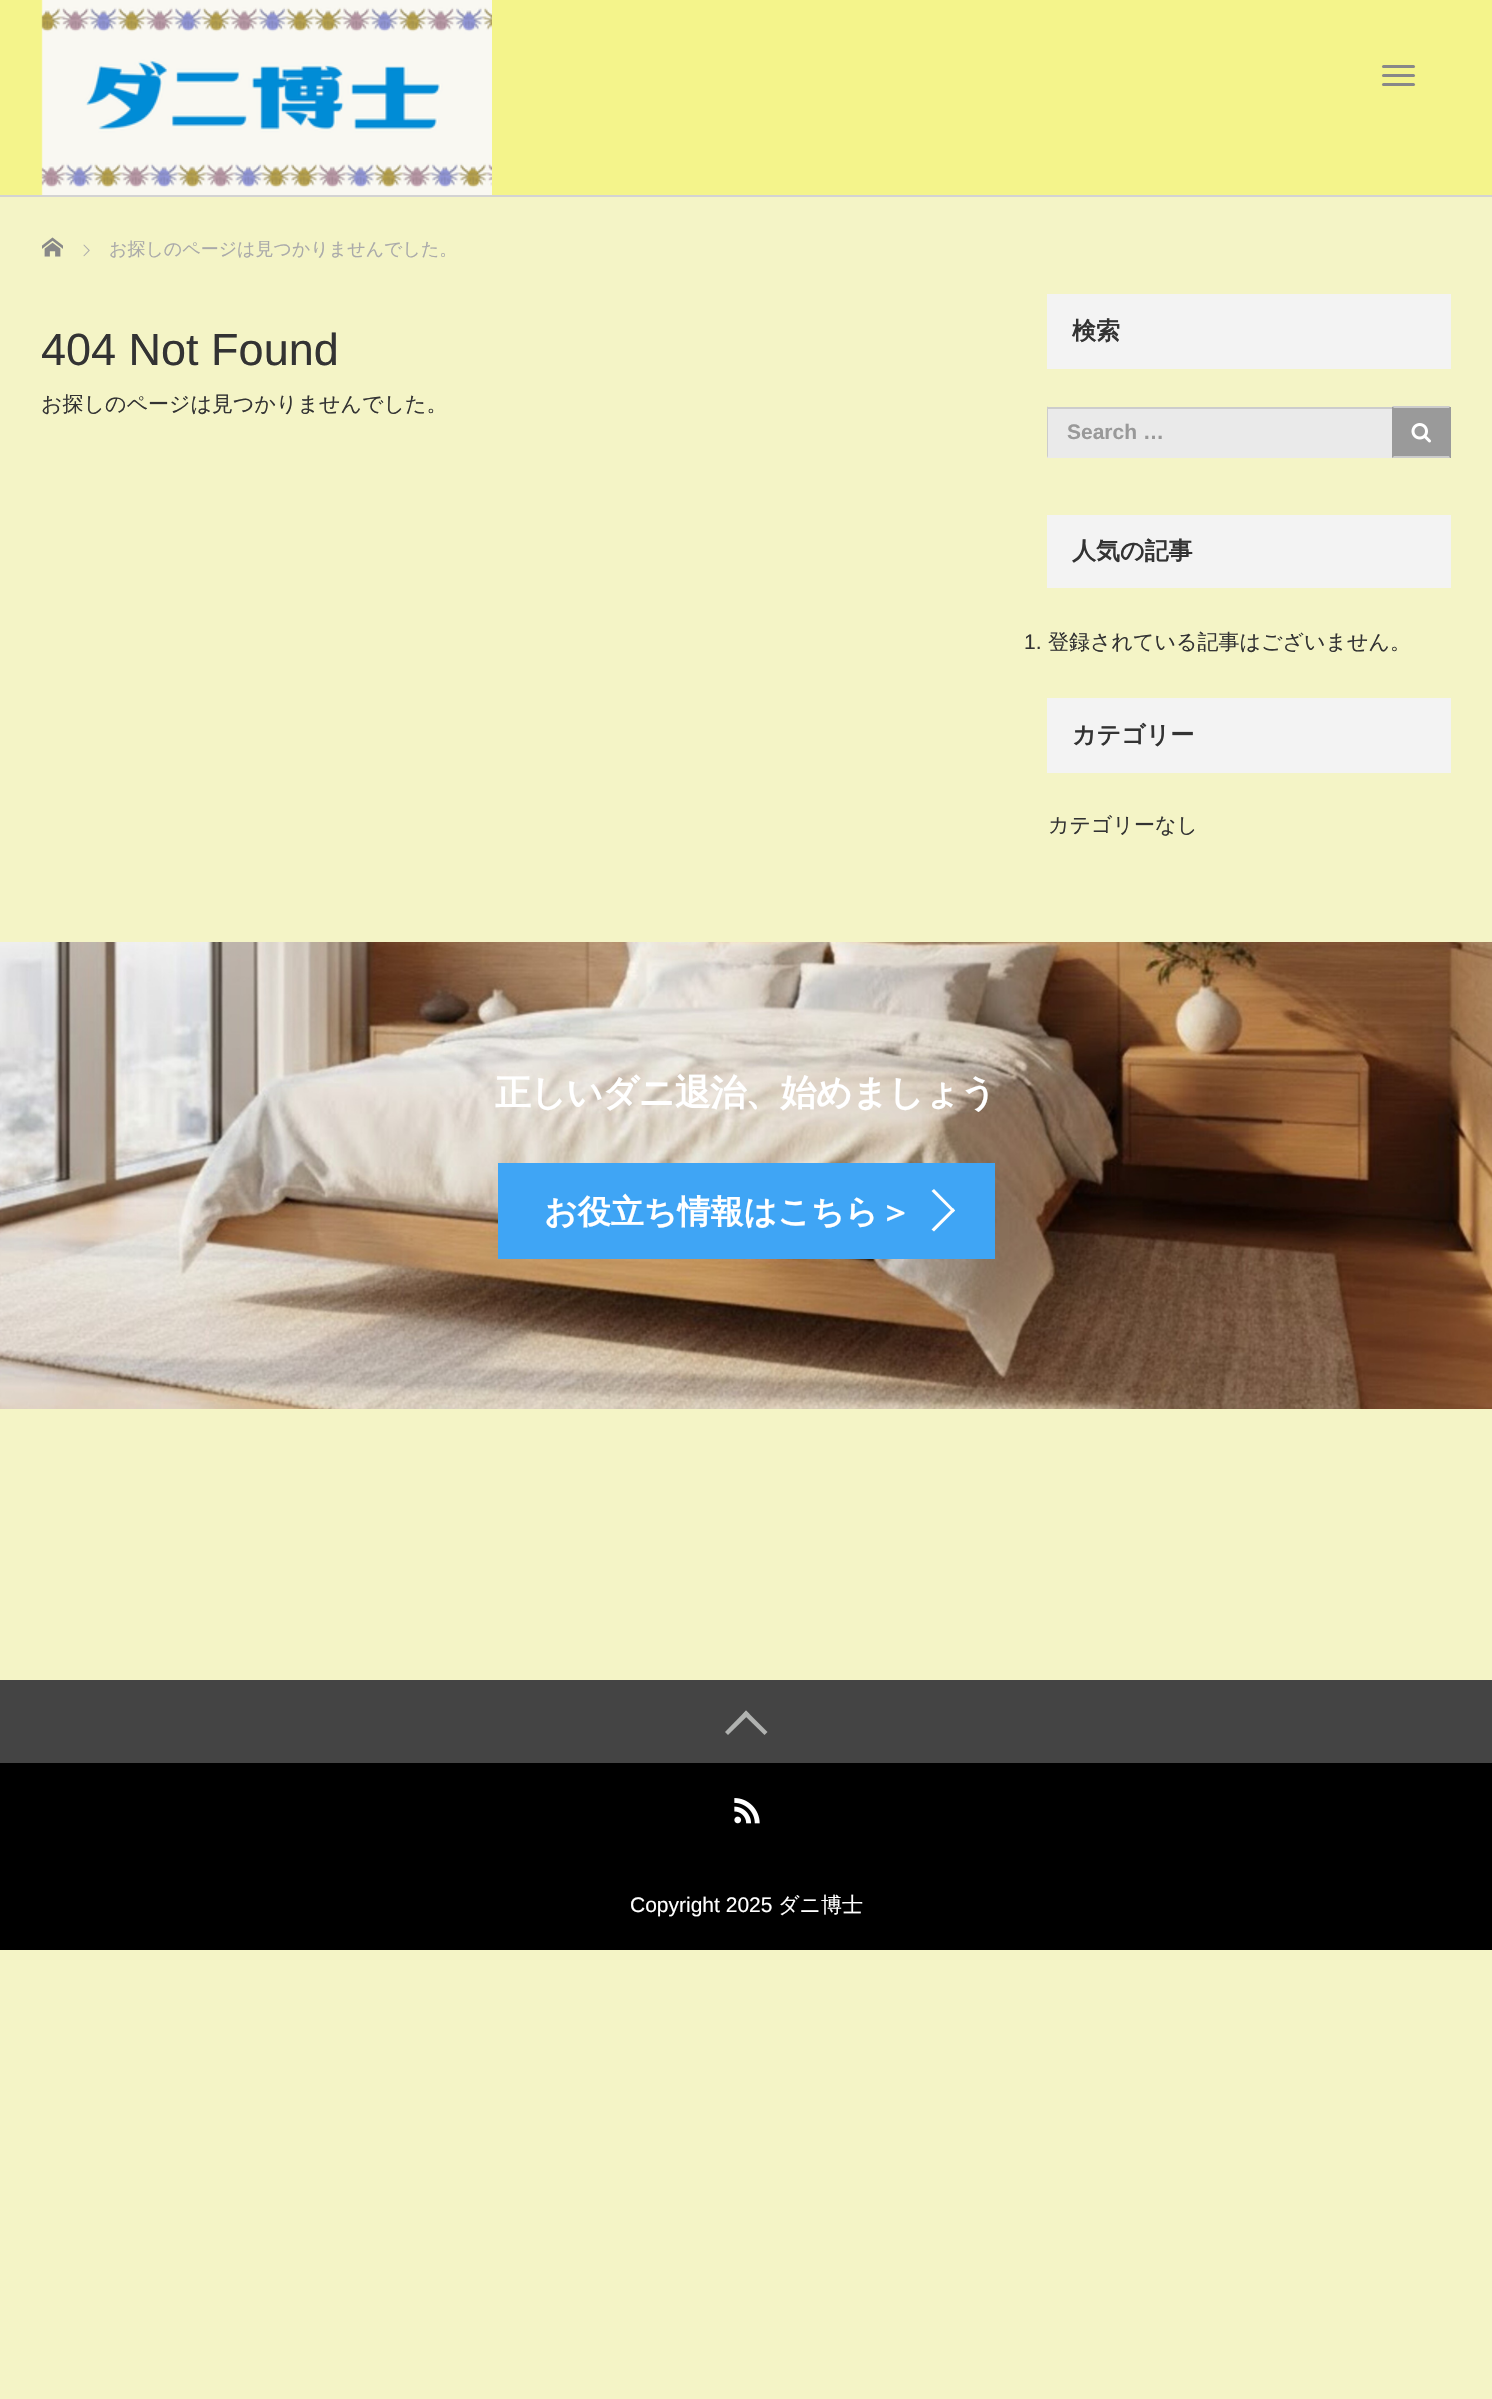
#include "include/core/SkBlurTypes.h"
#include "include/core/SkCanvas.h"
#include "include/core/SkData.h"
#include "include/core/SkFont.h"
#include "include/core/SkFontMgr.h"
#include "include/core/SkImage.h"
#include "include/core/SkMaskFilter.h"
#include "include/core/SkPaint.h"
#include "include/core/SkPathBuilder.h"
#include "include/core/SkTextBlob.h"
#include "include/effects/SkDashPathEffect.h"
#include "include/effects/SkGradientShader.h"
#include "include/utils/SkParsePath.h"

extern sk_sp<SkFontMgr> fontMgr;

void draw(SkCanvas* canvas) {
  SkPaint p;
  p.setAntiAlias(true);
  auto spacedText = [&](const char* s, float x, float y, const SkFont& font, const SkPaint& ink, float letter, float word) {
    std::vector<SkGlyphID> glyphs(font.countText(s, strlen(s), SkTextEncoding::kUTF8));
    std::vector<float> xs(glyphs.size());
    font.textToGlyphs(s, strlen(s), SkTextEncoding::kUTF8, glyphs);
    font.getXPos(glyphs, xs, x);
    float extra = 0;
    for (size_t i = 0; i < glyphs.size(); i++) {
      xs[i] += extra;
      extra += letter + word * (glyphs[i] == font.unicharToGlyph(' '));
    }
    canvas->drawTextBlob(SkTextBlob::MakeFromPosHGlyphs(glyphs, xs, y, font), 0, 0, ink);
  };
  canvas->clear(SkColorSetRGB(244, 244, 198));
  p.setColor(SkColorSetRGB(244, 244, 139));
  canvas->drawRect(SkRect::MakeLTRB(0, 0, 1492, 195), p);
  p.setColor(SkColorSetRGB(211, 211, 211));
  canvas->drawRect(SkRect::MakeLTRB(0, 195, 1492, 197), p);
  canvas->drawImageRect(SkImages::DeferredFromEncodedData(SkData::MakeFromFileName("images/1.png")), SkRect::MakeLTRB(41, 0, 492, 195), SkSamplingOptions());
  p.setColor(SkColorSetRGB(136, 136, 136));
  canvas->drawRoundRect(SkRect::MakeLTRB(1382, 65, 1415, 68), 1.5f, 1.5f, p);
  canvas->drawRoundRect(SkRect::MakeLTRB(1382, 74, 1415, 77), 1.5f, 1.5f, p);
  canvas->drawRoundRect(SkRect::MakeLTRB(1382, 83, 1415, 86), 1.5f, 1.5f, p);
  canvas->drawImageRect(SkImages::DeferredFromEncodedData(SkData::MakeFromFileName("images/2.png")), SkRect::MakeLTRB(42, 237, 63, 257), SkSamplingOptions());
  canvas->drawImageRect(SkImages::DeferredFromEncodedData(SkData::MakeFromFileName("images/3.png")), SkRect::MakeLTRB(83, 244, 90, 257), SkSamplingOptions());
  p.setColor(SkColorSetRGB(243, 243, 243));
  canvas->drawRect(SkRect::MakeLTRB(1047, 294, 1451, 369), p);
  p.setColor(SkColorSetRGB(234, 234, 234));
  canvas->drawRect(SkRect::MakeLTRB(1047, 409, 1392, 458), p);
  p.setColor(SkColorSetRGB(204, 204, 204));
  canvas->drawRect(SkRect::MakeLTRB(1047, 407, 1394, 409), p);
  canvas->drawPath(SkPathBuilder().moveTo(1047, 458).lineTo(1047, 406).lineTo(1048, 408).lineTo(1048, 456).close().detach(), p);
  p.setColor(SkColorSetRGB(154, 154, 154));
  canvas->drawRect(SkRect::MakeLTRB(1392, 407, 1451, 458), p);
  p.setColor(SkColorSetRGB(204, 204, 204));
  canvas->drawPath(SkPathBuilder().moveTo(1392, 406).lineTo(1450, 406).lineTo(1449, 408).lineTo(1394, 408).close().moveTo(1450, 458).lineTo(1392, 458).lineTo(1394, 456).lineTo(1449, 456).close().detach(), p);
  canvas->drawImageRect(SkImages::DeferredFromEncodedData(SkData::MakeFromFileName("images/4.png")), SkRect::MakeLTRB(1411, 423, 1431, 443), SkSamplingOptions());
  p.setColor(SkColorSetRGB(243, 243, 243));
  canvas->drawRect(SkRect::MakeLTRB(1047, 515, 1451, 588), p);
  canvas->drawRect(SkRect::MakeLTRB(1047, 698, 1451, 773), p);
  canvas->drawImageRect(SkImages::DeferredFromEncodedData(SkData::MakeFromFileName("images/5.png")), SkRect::MakeLTRB(0, 942, 1492, 1409), SkSamplingOptions());
  p.setColor(SkColorSetRGB(63, 165, 245));
  canvas->drawRect(SkRect::MakeLTRB(498, 1163, 995, 1259), p);
  p.setColor(SK_ColorWHITE);
  canvas->drawPath(SkPathBuilder().moveTo(934, 1189).lineTo(955, 1210.5f).lineTo(953, 1212.5f).lineTo(931.5f, 1191).close().detach(), p);
  canvas->drawPath(SkPathBuilder().moveTo(953, 1208).lineTo(955, 1210.5f).lineTo(934, 1231.5f).lineTo(931.5f, 1229.5f).close().detach(), p);
  p.setColor(SkColorSetRGB(68, 68, 68));
  canvas->drawRect(SkRect::MakeLTRB(0, 1680, 1492, 1763), p);
  p.setColor(SkColorSetRGB(176, 178, 176));
  canvas->drawPath(SkPathBuilder().moveTo(725, 1732).lineTo(746, 1710.5f).lineTo(749.5f, 1714).lineTo(728, 1735).close().detach(), p);
  canvas->drawPath(SkPathBuilder().moveTo(743, 1714).lineTo(746, 1710.5f).lineTo(767.5f, 1732).lineTo(764.5f, 1735).close().detach(), p);
  p.setColor(SK_ColorBLACK);
  canvas->drawRect(SkRect::MakeLTRB(0, 1763, 1492, 1950), p);
  canvas->drawImageRect(SkImages::DeferredFromEncodedData(SkData::MakeFromFileName("images/6.png")), SkRect::MakeLTRB(734, 1798, 760, 1824), SkSamplingOptions());
  SkFont font1(fontMgr->matchFamilyStyle("WenQuanYi Zen Hei", SkFontStyle(500, SkFontStyle::kNormal_Width, SkFontStyle::kUpright_Slant)), 18);
  font1.setSubpixel(true);
  p.setColor(SkColorSetRGB(170, 170, 170));
  canvas->drawString("お探しのページは見つかりませんでした。", 109, 255, font1, p);
  SkFont font2(fontMgr->matchFamilyStyle("Liberation Sans", SkFontStyle::Normal()), 45);
  font2.setSubpixel(true);
  p.setColor(SkColorSetRGB(51, 51, 51));
  canvas->drawString("404 Not Found", 41, 365, font2, p);
  SkFont font3(fontMgr->matchFamilyStyle("WenQuanYi Zen Hei", SkFontStyle(500, SkFontStyle::kNormal_Width, SkFontStyle::kUpright_Slant)), 21);
  font3.setSubpixel(true);
  canvas->drawString("お探しのページは見つかりませんでした。", 41, 411, font3, p);
  SkFont font4(fontMgr->matchFamilyStyle("WenQuanYi Zen Hei", SkFontStyle::Bold()), 24);
  font4.setSubpixel(true);
  canvas->drawString("検索", 1072, 339, font4, p);
  SkFont font5(fontMgr->matchFamilyStyle("Liberation Sans", SkFontStyle::Bold()), 21);
  font5.setSubpixel(true);
  p.setColor(SkColorSetRGB(153, 153, 153));
  canvas->drawString("Search …", 1067, 439, font5, p);
  p.setColor(SkColorSetRGB(51, 51, 51));
  canvas->drawString("人気の記事", 1072, 559, font4, p);
  SkFont font6(fontMgr->matchFamilyStyle("Liberation Sans", SkFontStyle::Normal()), 21);
  font6.setSubpixel(true);
  canvas->drawString("1.", 1024, 649, font6, p);
  canvas->drawString("登録されている記事はございません。", 1048, 649, font3, p);
  canvas->drawString("カテゴリー", 1072, 743, font4, p);
  canvas->drawString("カテゴリーなし", 1048, 832, font3, p);
  SkFont font7(fontMgr->matchFamilyStyle("WenQuanYi Zen Hei", SkFontStyle::Bold()), 36);
  font7.setSubpixel(true);
  p.setColor(SK_ColorWHITE);
  spacedText("正しいダニ退治、始めましょう", 495, 1105, font7, p, -0.75f, 0);
  SkFont font8(fontMgr->matchFamilyStyle("WenQuanYi Zen Hei", SkFontStyle::Bold()), 33);
  font8.setSubpixel(true);
  canvas->drawString("お役立ち情報はこちら＞", 544, 1223, font8, p);
  canvas->drawString("Copyright 2025", 630, 1912, font6, p);
  canvas->drawString("ダニ博士", 778, 1912, font3, p);
}
